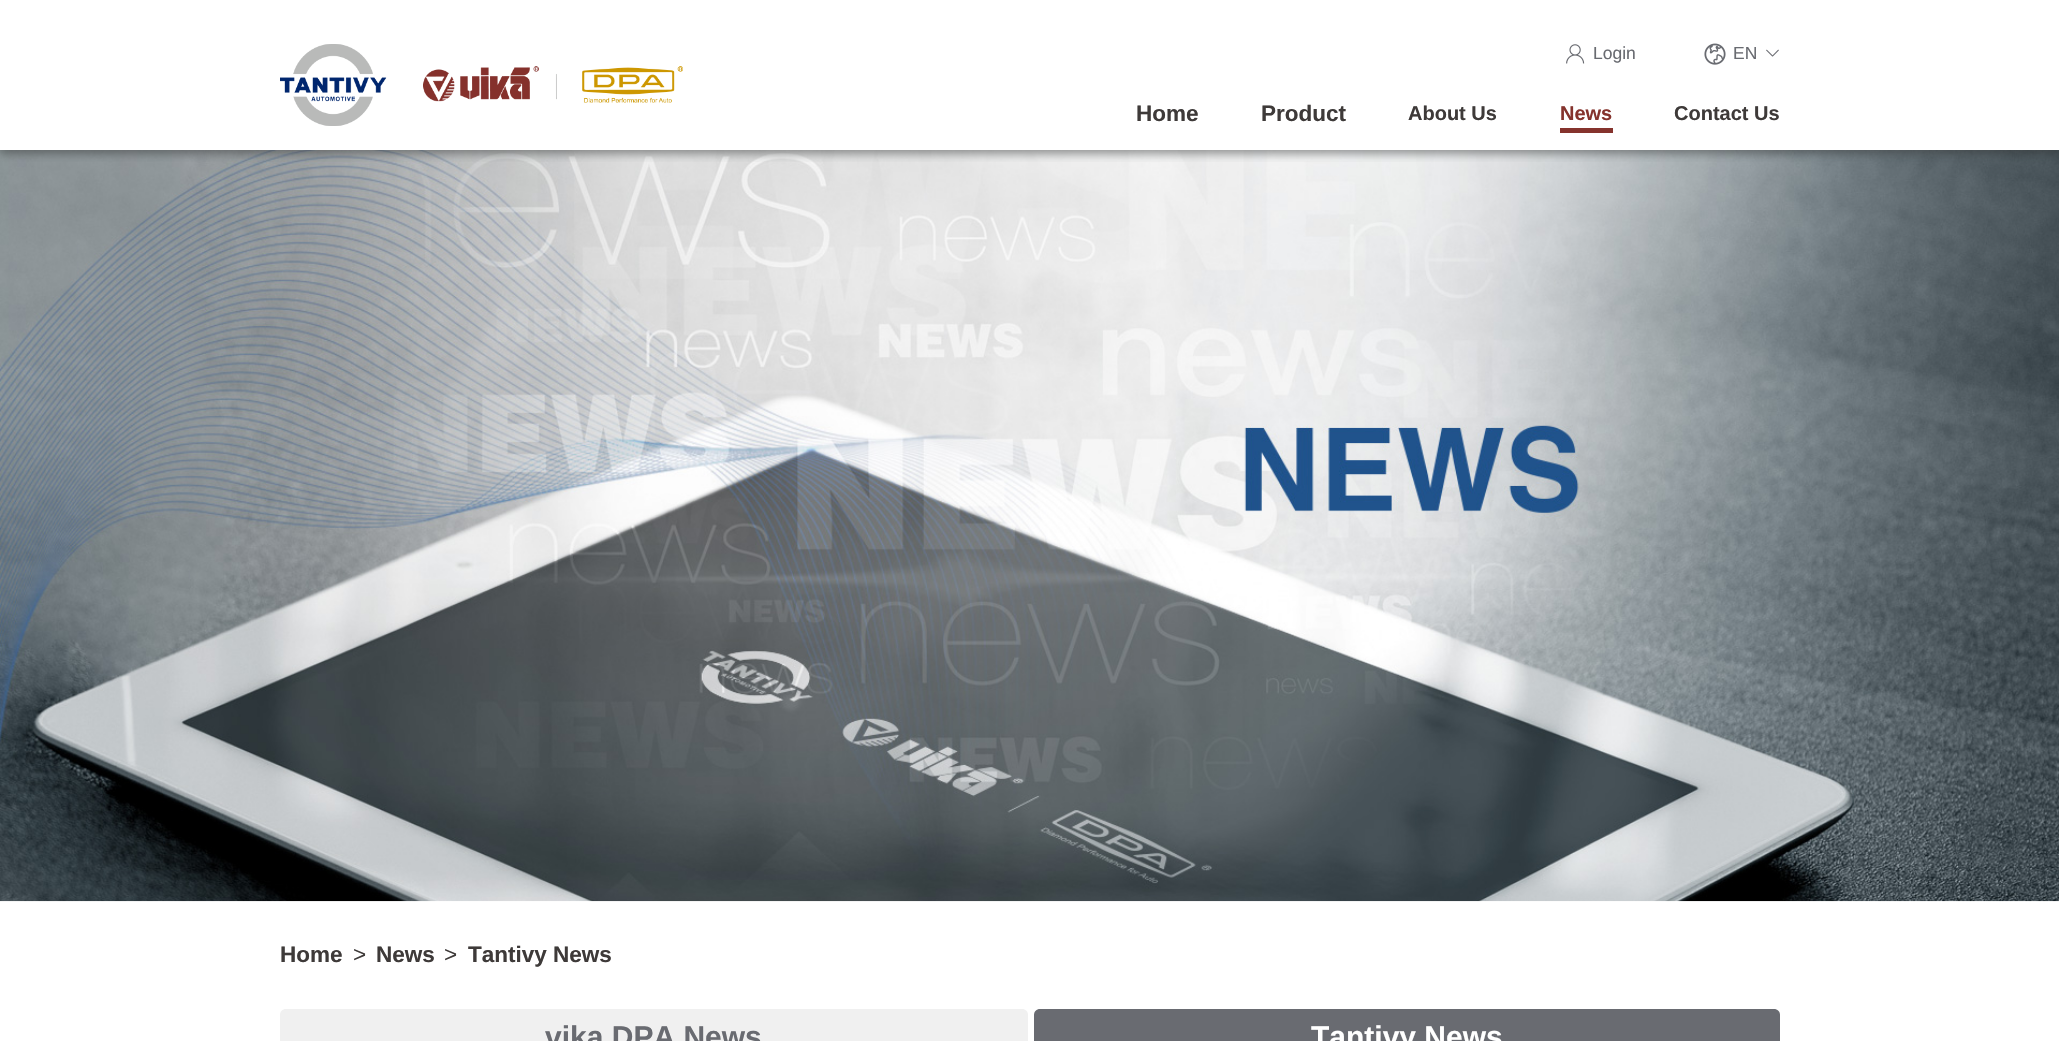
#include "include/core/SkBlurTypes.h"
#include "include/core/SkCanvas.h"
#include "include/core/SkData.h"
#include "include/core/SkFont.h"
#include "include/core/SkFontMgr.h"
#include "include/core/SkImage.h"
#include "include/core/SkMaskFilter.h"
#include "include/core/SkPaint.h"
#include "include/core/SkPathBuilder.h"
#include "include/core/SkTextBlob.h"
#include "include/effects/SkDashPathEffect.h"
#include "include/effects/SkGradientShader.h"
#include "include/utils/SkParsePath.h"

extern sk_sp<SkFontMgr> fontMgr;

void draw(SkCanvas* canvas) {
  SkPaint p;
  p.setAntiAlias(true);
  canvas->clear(SK_ColorWHITE);
  canvas->drawImageRect(SkImages::DeferredFromEncodedData(SkData::MakeFromFileName("images/5.png")), SkRect::MakeLTRB(0, 150, 2059, 902), SkSamplingOptions());
  canvas->save();
  canvas->clipRect(SkRect::MakeLTRB(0, 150, 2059, 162));
  p.setColor(SkColorSetARGB(128, 50, 53, 53));
  p.setMaskFilter(SkMaskFilter::MakeBlur(kNormal_SkBlurStyle, 4.5f));
  canvas->drawRect(SkRect::MakeLTRB(0, 4, 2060, 154), p);
  p.setMaskFilter(nullptr);
  canvas->restore();
  canvas->drawImageRect(SkImages::DeferredFromEncodedData(SkData::MakeFromFileName("images/1.png")), SkRect::MakeLTRB(280, 44, 683, 126), SkSamplingOptions());
  canvas->drawImageRect(SkImages::DeferredFromEncodedData(SkData::MakeFromFileName("images/2.png")), SkRect::MakeLTRB(1566, 44, 1585, 64), SkSamplingOptions());
  canvas->drawImageRect(SkImages::DeferredFromEncodedData(SkData::MakeFromFileName("images/3.png")), SkRect::MakeLTRB(1704, 43, 1726, 65), SkSamplingOptions());
  canvas->drawImageRect(SkImages::DeferredFromEncodedData(SkData::MakeFromFileName("images/4.png")), SkRect::MakeLTRB(1766, 49, 1779, 57), SkSamplingOptions());
  p.setColor(SkColorSetRGB(133, 51, 45));
  canvas->drawRect(SkRect::MakeLTRB(1560, 128, 1613, 133), p);
  p.setColor(SkColorSetRGB(240, 240, 240));
  canvas->drawPath(SkPathBuilder().moveTo(286, 1009).lineTo(1022, 1009).cubicTo(1025.5f, 1009, 1028, 1011.5f, 1028, 1015).lineTo(1028, 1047).lineTo(280, 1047).lineTo(280, 1015).cubicTo(280, 1011.5f, 282.5f, 1009, 286, 1009).close().detach(), p);
  p.setColor(SkColorSetRGB(105, 107, 113));
  canvas->drawPath(SkPathBuilder().moveTo(1040, 1009).lineTo(1774, 1009).cubicTo(1777.5f, 1009, 1780, 1011.5f, 1780, 1015).lineTo(1780, 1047).lineTo(1034, 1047).lineTo(1034, 1015).cubicTo(1034, 1011.5f, 1036.5f, 1009, 1040, 1009).close().detach(), p);
  SkFont font1(fontMgr->matchFamilyStyle("Liberation Sans", SkFontStyle::Normal()), 17.5f);
  font1.setSubpixel(true);
  canvas->drawString("Login", 1593, 59, font1, p);
  canvas->drawString("EN", 1733, 59, font1, p);
  SkFont font2(fontMgr->matchFamilyStyle("Liberation Sans", SkFontStyle::Bold()), 22.5f);
  font2.setSubpixel(true);
  p.setColor(SkColorSetRGB(62, 58, 57));
  canvas->drawString("Home", 1136, 121, font2, p);
  canvas->drawString("Product", 1261, 121, font2, p);
  SkFont font3(fontMgr->matchFamilyStyle("Liberation Sans", SkFontStyle::Bold()), 20);
  font3.setSubpixel(true);
  canvas->drawString("About Us", 1408, 120, font3, p);
  p.setColor(SkColorSetRGB(133, 51, 45));
  canvas->drawString("News", 1560, 120, font3, p);
  p.setColor(SkColorSetRGB(62, 58, 57));
  canvas->drawString("Contact Us", 1674, 120, font3, p);
  canvas->drawString("Home", 280, 962, font2, p);
  SkFont font4(fontMgr->matchFamilyStyle("Liberation Sans", SkFontStyle::Normal()), 22.5f);
  font4.setSubpixel(true);
  canvas->drawString(">", 353, 962, font4, p);
  canvas->drawString("News", 376, 962, font2, p);
  canvas->drawString(">", 444, 962, font4, p);
  canvas->drawString("Tantivy News", 468, 962, font2, p);
  SkFont font5(fontMgr->matchFamilyStyle("Liberation Sans", SkFontStyle::Bold()), 30);
  font5.setSubpixel(true);
  p.setColor(SkColorSetRGB(105, 107, 113));
  canvas->drawString("vika DPA News", 545, 1047, font5, p);
  p.setColor(SK_ColorWHITE);
  canvas->drawString("Tantivy News", 1311, 1047, font5, p);
}
